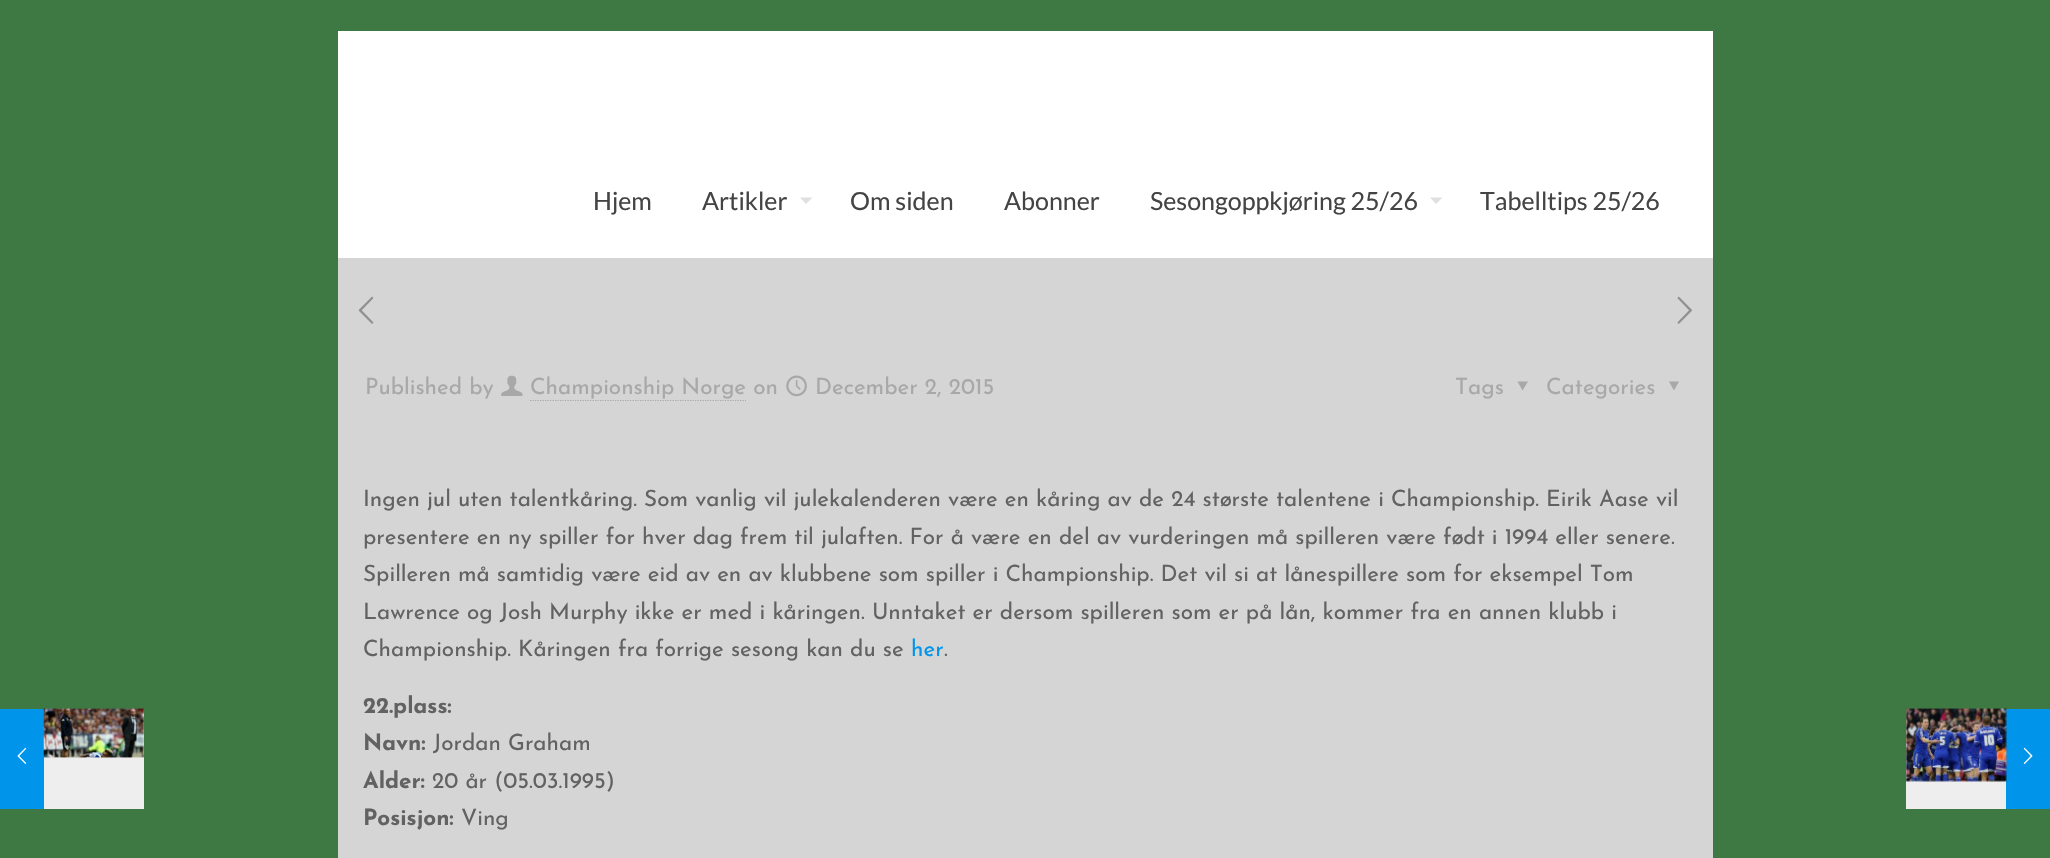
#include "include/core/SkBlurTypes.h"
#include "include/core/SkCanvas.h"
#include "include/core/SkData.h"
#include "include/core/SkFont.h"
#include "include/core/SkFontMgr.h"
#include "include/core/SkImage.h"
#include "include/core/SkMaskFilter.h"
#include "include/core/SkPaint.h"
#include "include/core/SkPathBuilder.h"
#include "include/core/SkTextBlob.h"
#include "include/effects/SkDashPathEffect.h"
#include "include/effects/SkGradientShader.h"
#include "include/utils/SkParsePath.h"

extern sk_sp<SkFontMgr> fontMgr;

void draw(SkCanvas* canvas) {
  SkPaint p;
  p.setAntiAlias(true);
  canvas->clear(SkColorSetRGB(62, 121, 67));
  p.setColor(SkColorSetRGB(0, 149, 235));
  canvas->drawRect(SkRect::MakeLTRB(0, 709, 44, 809), p);
  canvas->drawImageRect(SkImages::DeferredFromEncodedData(SkData::MakeFromFileName("images/1.png")), SkRect::MakeLTRB(17, 747, 27, 764), SkSamplingOptions());
  p.setColor(SkColorSetRGB(238, 238, 238));
  canvas->drawRect(SkRect::MakeLTRB(44, 709, 144, 809), p);
  canvas->drawImageRect(SkImages::DeferredFromEncodedData(SkData::MakeFromFileName("images/7.png")), SkRect::MakeLTRB(43, 708, 144, 709), SkSamplingOptions());
  canvas->drawImageRect(SkImages::DeferredFromEncodedData(SkData::MakeFromFileName("images/2.png")), SkRect::MakeLTRB(43, 708, 144, 758), SkSamplingOptions());
  p.setColor(SkColorSetRGB(213, 213, 213));
  canvas->drawRect(SkRect::MakeLTRB(338, 258, 1713, 858), p);
  p.setColor(SK_ColorWHITE);
  canvas->drawRect(SkRect::MakeLTRB(338, 31, 1713, 258), p);
  p.setColor(SkColorSetRGB(224, 224, 224));
  canvas->drawPath(SkPathBuilder().moveTo(800, 197.5f).lineTo(812.5f, 197.5f).lineTo(806, 204).close().detach(), p);
  canvas->drawPath(SkPathBuilder().moveTo(1430, 197.5f).lineTo(1442.5f, 197.5f).lineTo(1436, 204).close().detach(), p);
  canvas->drawImageRect(SkImages::DeferredFromEncodedData(SkData::MakeFromFileName("images/3.png")), SkRect::MakeLTRB(358, 296, 374, 324), SkSamplingOptions());
  canvas->drawImageRect(SkImages::DeferredFromEncodedData(SkData::MakeFromFileName("images/4.png")), SkRect::MakeLTRB(1677, 296, 1692, 324), SkSamplingOptions());
  canvas->drawImageRect(SkImages::DeferredFromEncodedData(SkData::MakeFromFileName("images/5.png")), SkRect::MakeLTRB(501, 375, 523, 396), SkSamplingOptions());
  p.setStyle(SkPaint::kStroke_Style);
  p.setStrokeWidth(1.2f);
  p.setColor(SkColorSetRGB(168, 168, 168));
  p.setPathEffect(SkDashPathEffect::Make({{1.25f, 1.25f}}, 0));
  canvas->drawPath(SkPathBuilder().moveTo(530, 400.5f).lineTo(746, 400.5f).detach(), p);
  p.setPathEffect(nullptr);
  canvas->drawImageRect(SkImages::DeferredFromEncodedData(SkData::MakeFromFileName("images/6.png")), SkRect::MakeLTRB(786, 375, 807, 397), SkSamplingOptions());
  p.setStyle(SkPaint::kFill_Style);
  canvas->drawPath(SkPathBuilder().moveTo(1528, 381.5f).lineTo(1522.5f, 390.5f).lineTo(1517.5f, 381.5f).close().detach(), p);
  canvas->drawPath(SkPathBuilder().moveTo(1679, 381.5f).lineTo(1674, 390.5f).lineTo(1669, 381.5f).close().detach(), p);
  canvas->drawImageRect(SkImages::DeferredFromEncodedData(SkData::MakeFromFileName("images/8.png")), SkRect::MakeLTRB(1906, 708, 2007, 709), SkSamplingOptions());
  p.setColor(SkColorSetRGB(238, 238, 238));
  canvas->drawRect(SkRect::MakeLTRB(1906, 709, 2006, 809), p);
  p.setColor(SkColorSetRGB(0, 149, 235));
  canvas->drawRect(SkRect::MakeLTRB(2006, 709, 2050, 809), p);
  canvas->drawImageRect(SkImages::DeferredFromEncodedData(SkData::MakeFromFileName("images/9.png")), SkRect::MakeLTRB(1906, 708, 2007, 782), SkSamplingOptions());
  canvas->drawImageRect(SkImages::DeferredFromEncodedData(SkData::MakeFromFileName("images/10.png")), SkRect::MakeLTRB(2023, 747, 2033, 764), SkSamplingOptions());
  SkFont font1(fontMgr->matchFamilyStyle("Lato", SkFontStyle::Normal()), 25);
  font1.setSubpixel(true);
  p.setColor(SkColorSetRGB(68, 68, 68));
  canvas->drawString("Hjem", 593, 210, font1, p);
  canvas->drawString("Artikler", 702, 210, font1, p);
  canvas->drawString("Om siden", 850, 210, font1, p);
  canvas->drawString("Abonner", 1004, 210, font1, p);
  canvas->drawString("Sesongoppkjøring 25/26", 1150, 210, font1, p);
  canvas->drawString("Tabelltips 25/26", 1480, 210, font1, p);
  SkFont font2(fontMgr->matchFamilyStyle("Josefin Sans", SkFontStyle::Normal()), 22.5f);
  font2.setSubpixel(true);
  p.setColor(SkColorSetRGB(168, 168, 168));
  canvas->drawString("Published by", 365, 394, font2, p);
  canvas->drawString("Championship Norge on", 530, 394, font2, p);
  canvas->drawString("December 2, 2015", 815, 394, font2, p);
  canvas->drawString("Tags", 1455, 394, font2, p);
  canvas->drawString("Categories", 1546, 394, font2, p);
  p.setColor(SkColorSetRGB(98, 98, 98));
  canvas->drawString("Ingen jul uten talentkåring. Som vanlig vil julekalenderen være en kåring av de 24 største talentene i Championship. Eirik Aase vil", 363, 506, font2, p);
  canvas->drawString("presentere en ny spiller for hver dag frem til julaften. For å være en del av vurderingen må spilleren være født i 1994 eller senere.", 363, 544, font2, p);
  canvas->drawString("Spilleren må samtidig være eid av en av klubbene som spiller i Championship. Det vil si at lånespillere som for eksempel Tom", 363, 581, font2, p);
  canvas->drawString("Lawrence og Josh Murphy ikke er med i kåringen. Unntaket er dersom spilleren som er på lån, kommer fra en annen klubb i", 363, 619, font2, p);
  canvas->drawString("Championship. Kåringen fra forrige sesong kan du se", 363, 656, font2, p);
  p.setColor(SkColorSetRGB(0, 149, 235));
  canvas->drawString("her", 911, 656, font2, p);
  p.setColor(SkColorSetRGB(98, 98, 98));
  canvas->drawString(".", 944, 656, font2, p);
  SkFont font3(fontMgr->matchFamilyStyle("Josefin Sans", SkFontStyle::Bold()), 22.5f);
  font3.setSubpixel(true);
  canvas->drawString("22.plass:", 363, 713, font3, p);
  canvas->drawString("Navn:", 363, 750, font3, p);
  canvas->drawString("Jordan Graham", 433, 750, font2, p);
  canvas->drawString("Alder:", 363, 788, font3, p);
  canvas->drawString("20 år (05.03.1995)", 432, 788, font2, p);
  canvas->drawString("Posisjon:", 363, 825, font3, p);
  canvas->drawString("Ving", 461, 825, font2, p);
}
